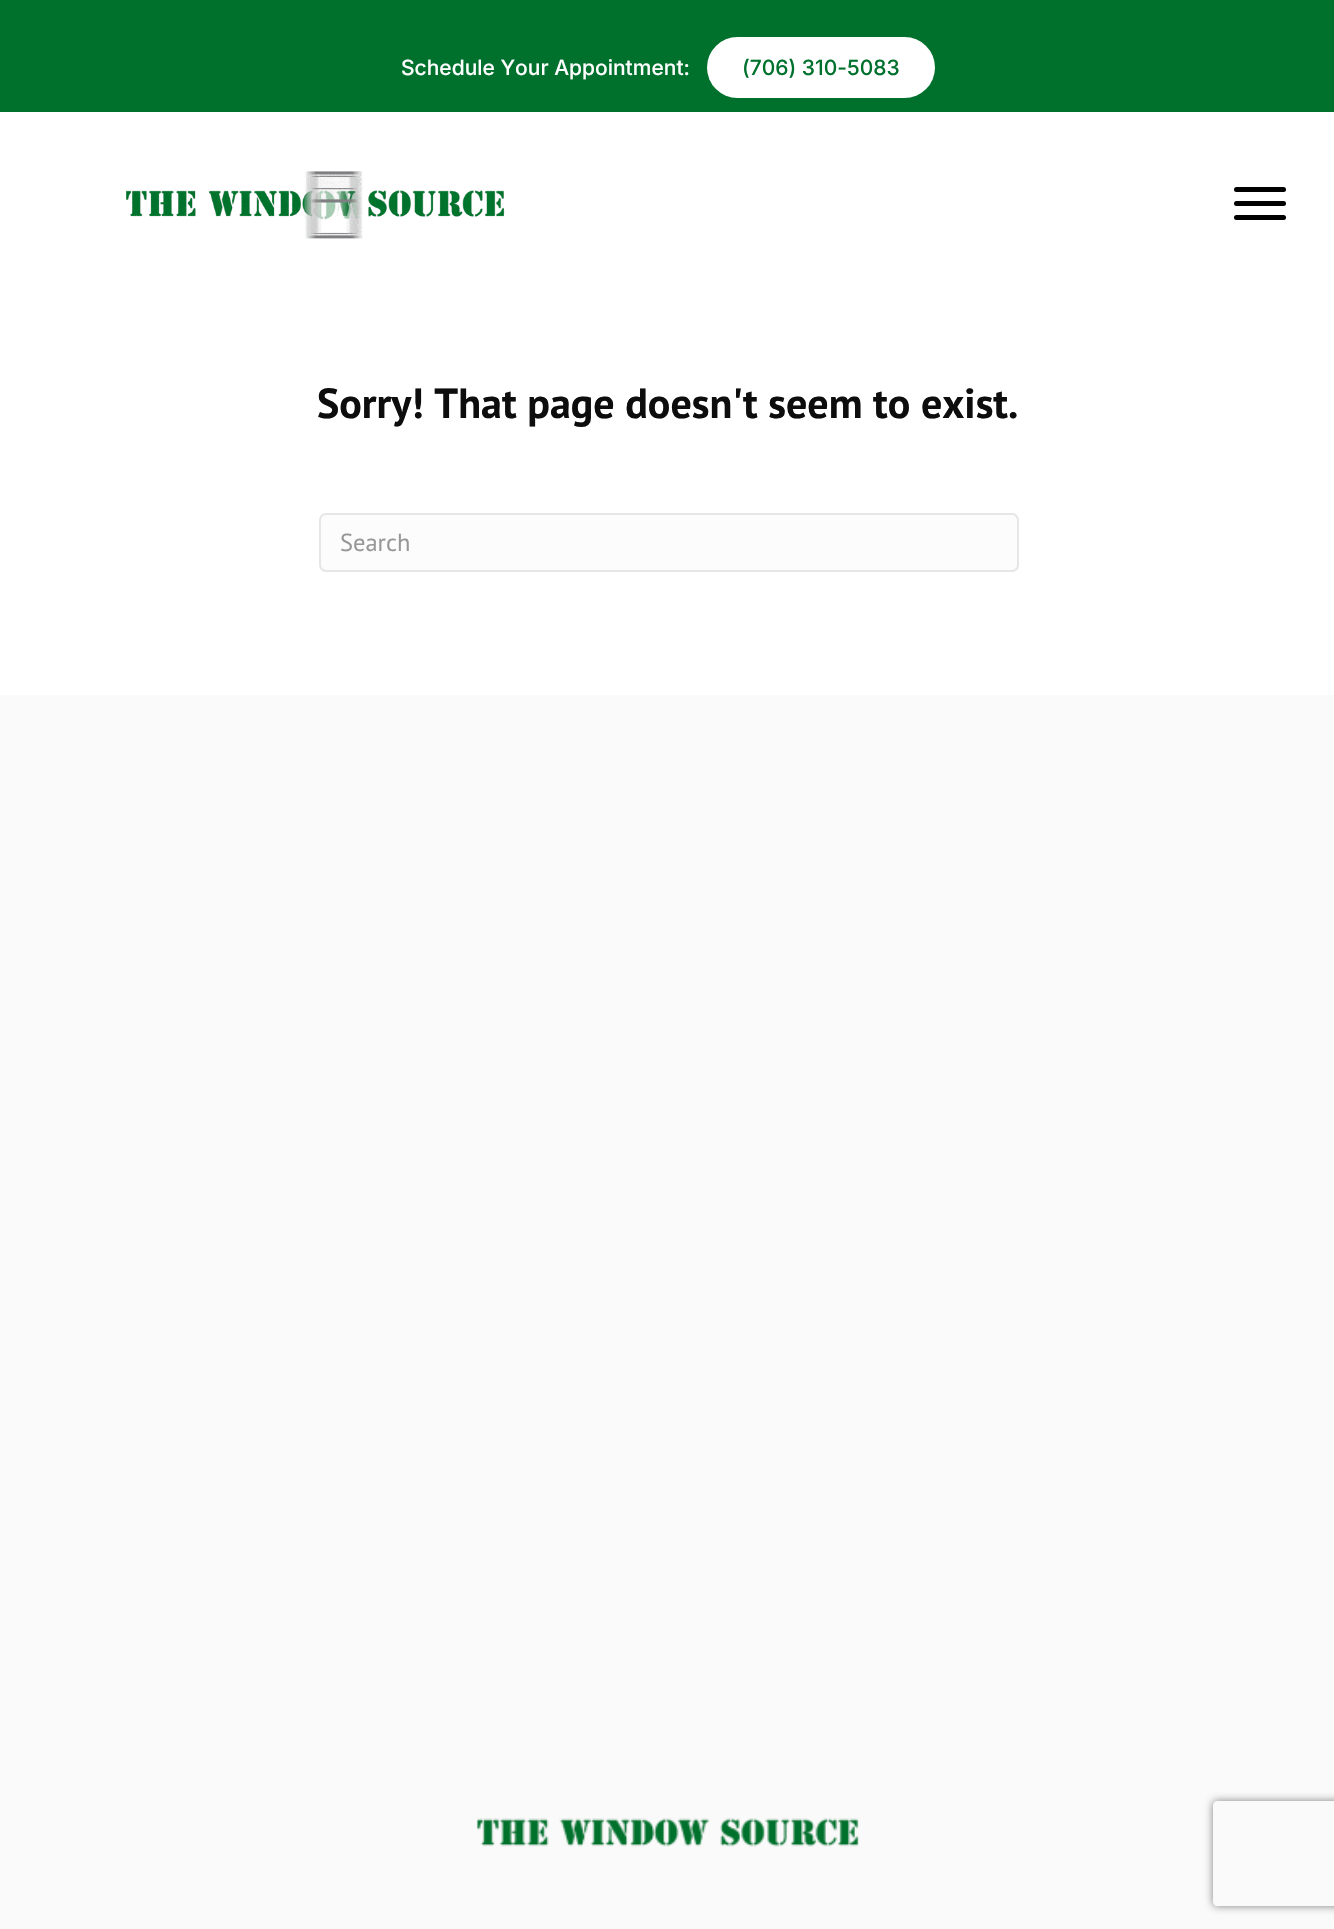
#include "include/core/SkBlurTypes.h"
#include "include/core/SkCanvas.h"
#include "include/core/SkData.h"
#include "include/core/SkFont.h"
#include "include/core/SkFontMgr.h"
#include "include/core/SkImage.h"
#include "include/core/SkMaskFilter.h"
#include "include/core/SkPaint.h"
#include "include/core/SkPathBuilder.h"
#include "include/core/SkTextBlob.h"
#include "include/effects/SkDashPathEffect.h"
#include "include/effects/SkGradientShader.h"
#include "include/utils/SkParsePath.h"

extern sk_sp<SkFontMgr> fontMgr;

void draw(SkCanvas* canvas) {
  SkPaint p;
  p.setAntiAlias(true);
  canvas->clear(SK_ColorWHITE);
  p.setColor(SkColorSetRGB(0, 113, 45));
  canvas->drawRect(SkRect::MakeLTRB(0, 0, 1334, 112), p);
  p.setColor(SK_ColorWHITE);
  canvas->drawRoundRect(SkRect::MakeLTRB(707, 37, 935, 98), 30.5f, 30.5f, p);
  canvas->drawImageRect(SkImages::DeferredFromEncodedData(SkData::MakeFromFileName("images/1.png")), SkRect::MakeLTRB(125, 171, 505, 239), SkSamplingOptions());
  p.setColor(SK_ColorBLACK);
  canvas->drawRoundRect(SkRect::MakeLTRB(1234, 201, 1286, 206), 2.5f, 2.5f, p);
  canvas->drawRoundRect(SkRect::MakeLTRB(1234, 187, 1286, 192), 2.5f, 2.5f, p);
  canvas->drawRoundRect(SkRect::MakeLTRB(1234, 215, 1286, 220), 2.5f, 2.5f, p);
  p.setColor(SkColorSetRGB(252, 252, 252));
  canvas->drawRoundRect(SkRect::MakeLTRB(320, 514, 1018, 571), 6, 6, p);
  p.setStyle(SkPaint::kStroke_Style);
  p.setStrokeWidth(2);
  p.setColor(SkColorSetRGB(230, 230, 230));
  canvas->drawRoundRect(SkRect::MakeLTRB(320, 514, 1018, 571), 6, 6, p);
  p.setStyle(SkPaint::kFill_Style);
  p.setColor(SkColorSetRGB(250, 250, 250));
  canvas->drawRect(SkRect::MakeLTRB(0, 695, 1334, 1929), p);
  canvas->drawImageRect(SkImages::DeferredFromEncodedData(SkData::MakeFromFileName("images/2.png")), SkRect::MakeLTRB(476, 1818, 859, 1847), SkSamplingOptions());
  canvas->save();
  canvas->clipPath(SkPathBuilder(SkPathFillType::kEvenOdd).moveTo(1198, 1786).lineTo(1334, 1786).lineTo(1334, 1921).lineTo(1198, 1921).close().moveTo(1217, 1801).lineTo(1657, 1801).cubicTo(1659, 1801, 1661, 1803, 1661, 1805).lineTo(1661, 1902).cubicTo(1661, 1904, 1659, 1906, 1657, 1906).lineTo(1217, 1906).cubicTo(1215, 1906, 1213, 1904, 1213, 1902).lineTo(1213, 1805).cubicTo(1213, 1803, 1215, 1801, 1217, 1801).close().detach(), true);
  p.setColor(SkColorSetRGB(128, 128, 128));
  p.setMaskFilter(SkMaskFilter::MakeBlur(kNormal_SkBlurStyle, 4.5f));
  canvas->drawRoundRect(SkRect::MakeLTRB(1213, 1801, 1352, 1906), 4, 4, p);
  p.setMaskFilter(nullptr);
  canvas->restore();
  SkFont font1(fontMgr->matchFamilyStyle("Inter", SkFontStyle(500, SkFontStyle::kNormal_Width, SkFontStyle::kUpright_Slant)), 21);
  font1.setSubpixel(true);
  p.setColor(SK_ColorWHITE);
  canvas->drawString("Schedule Your Appointment:", 401, 75, font1, p);
  p.setColor(SkColorSetRGB(0, 113, 45));
  canvas->drawString("(706) 310-5083", 742, 75, font1, p);
  SkFont font2(fontMgr->matchFamilyStyle("PT Sans", SkFontStyle::Bold()), 42);
  font2.setSubpixel(true);
  p.setColor(SkColorSetRGB(13, 13, 13));
  canvas->drawString("Sorry! That page doesn't seem to exist.", 317, 418, font2, p);
  SkFont font3(fontMgr->matchFamilyStyle("PT Sans", SkFontStyle::Normal()), 24.5f);
  font3.setSubpixel(true);
  p.setColor(SkColorSetRGB(151, 151, 151));
  canvas->drawString("Search", 340, 551, font3, p);
}
